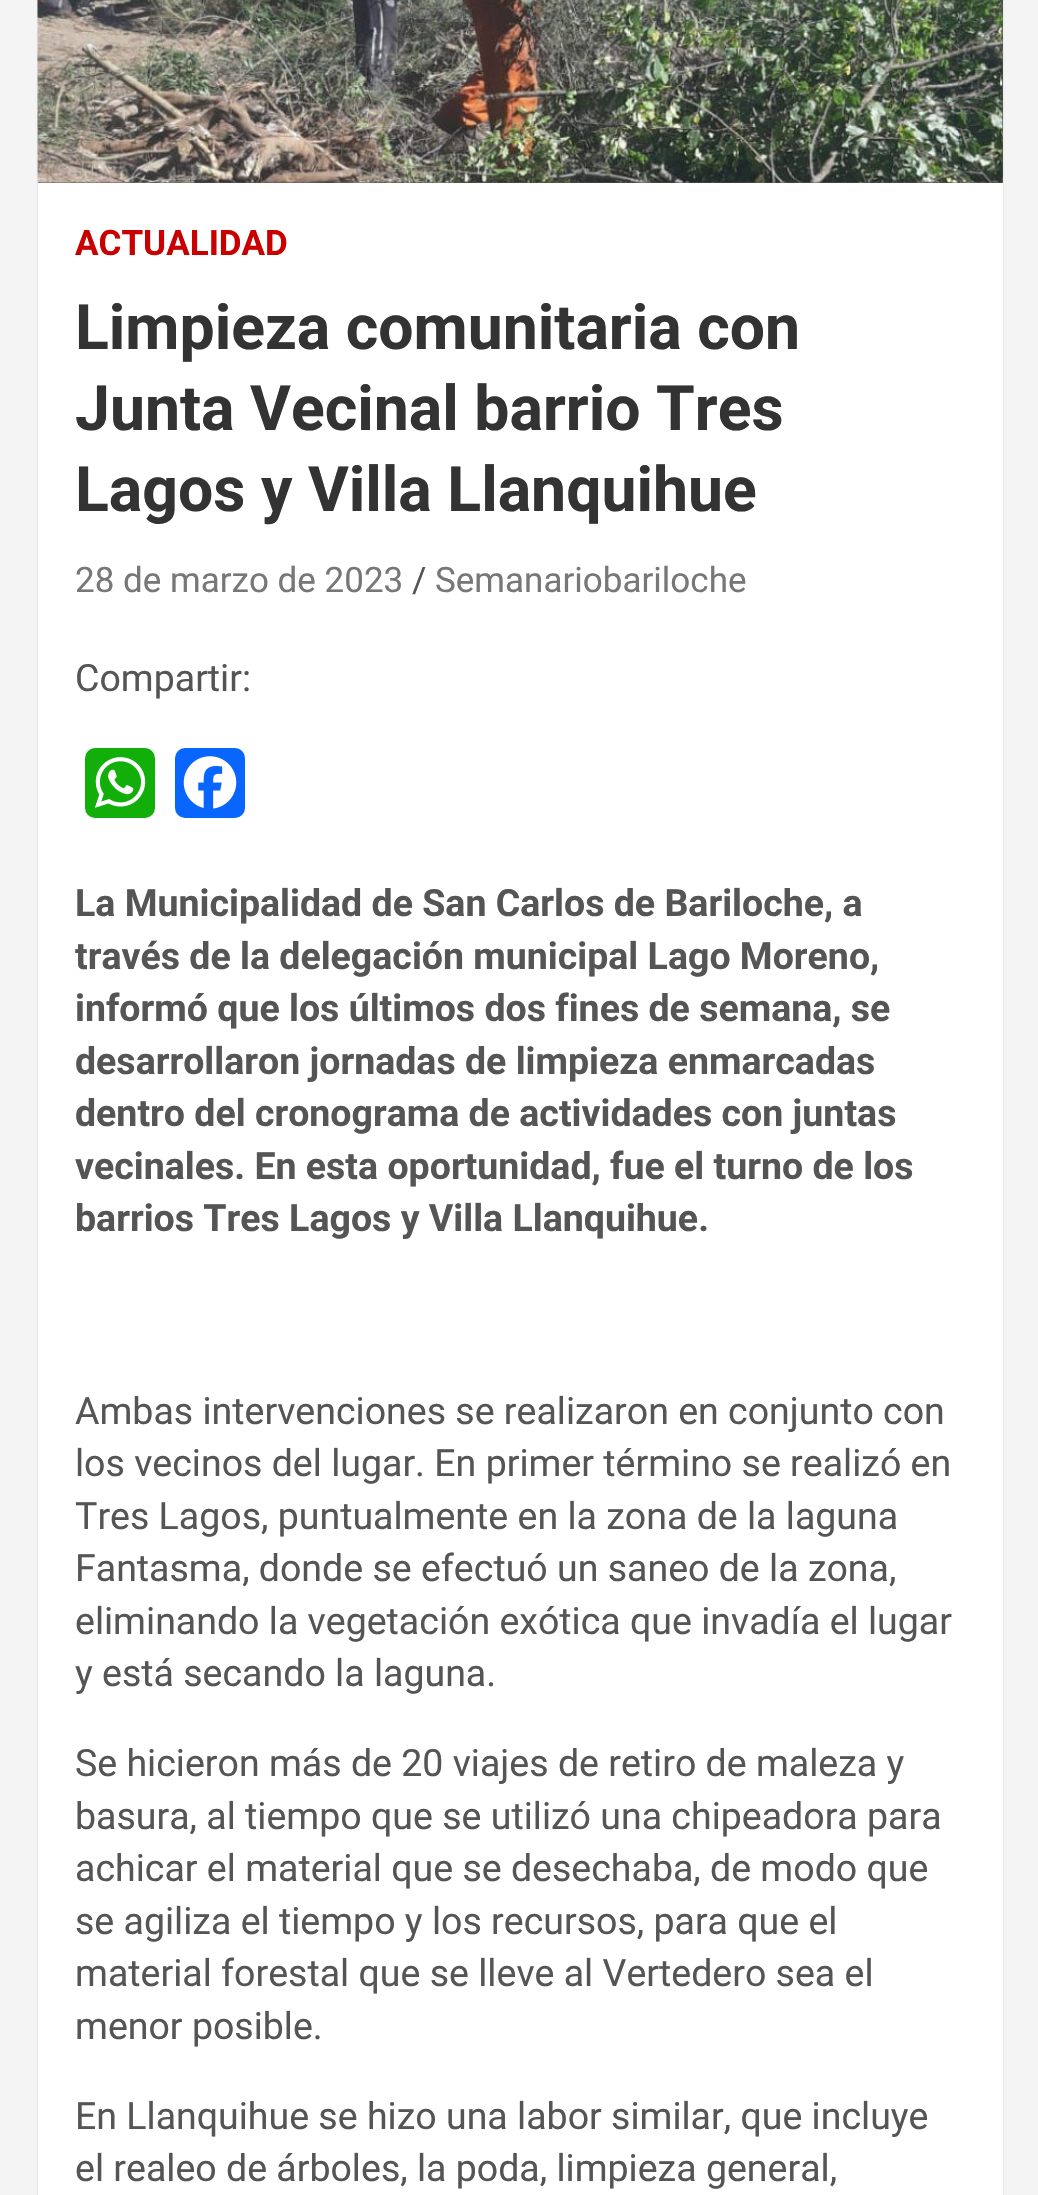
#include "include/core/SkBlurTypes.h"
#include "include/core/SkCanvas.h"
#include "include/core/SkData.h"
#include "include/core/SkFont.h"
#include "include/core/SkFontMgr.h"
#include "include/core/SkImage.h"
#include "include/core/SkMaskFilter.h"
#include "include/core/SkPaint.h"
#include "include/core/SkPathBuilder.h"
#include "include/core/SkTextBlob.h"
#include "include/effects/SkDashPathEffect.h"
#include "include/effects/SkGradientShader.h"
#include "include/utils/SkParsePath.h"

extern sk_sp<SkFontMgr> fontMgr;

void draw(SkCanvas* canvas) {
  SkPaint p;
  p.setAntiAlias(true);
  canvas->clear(SkColorSetRGB(244, 244, 244));
  p.setColor(SkColorSetARGB(26, 0, 0, 0));
  p.setMaskFilter(SkMaskFilter::MakeBlur(kNormal_SkBlurStyle, 1));
  canvas->drawRect(SkRect::MakeLTRB(38, -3, 1003, 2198), p);
  p.setMaskFilter(nullptr);
  p.setColor(SK_ColorWHITE);
  canvas->drawRect(SkRect::MakeLTRB(38, 183, 1003, 2195), p);
  p.setColor(SkColorSetRGB(85, 85, 85));
  canvas->drawRect(SkRect::MakeLTRB(38, 0, 1003, 183), p);
  canvas->drawImageRect(SkImages::DeferredFromEncodedData(SkData::MakeFromFileName("images/1.png")), SkRect::MakeLTRB(37, 0, 1003, 183), SkSamplingOptions());
  p.setColor(SkColorSetRGB(18, 175, 10));
  canvas->drawRoundRect(SkRect::MakeLTRB(85, 748, 155, 818), 10, 10, p);
  canvas->drawImageRect(SkImages::DeferredFromEncodedData(SkData::MakeFromFileName("images/2.png")), SkRect::MakeLTRB(94, 757, 146, 808), SkSamplingOptions());
  p.setColor(SkColorSetRGB(8, 102, 255));
  canvas->drawRoundRect(SkRect::MakeLTRB(175, 748, 245, 818), 10, 10, p);
  canvas->drawImageRect(SkImages::DeferredFromEncodedData(SkData::MakeFromFileName("images/3.png")), SkRect::MakeLTRB(183, 756, 237, 809), SkSamplingOptions());
  SkFont font1(fontMgr->matchFamilyStyle("Roboto", SkFontStyle::Bold()), 35);
  font1.setSubpixel(true);
  p.setColor(SkColorSetRGB(200, 0, 0));
  canvas->drawString("ACTUALIDAD", 75, 255, font1, p);
  SkFont font2(fontMgr->matchFamilyStyle("Roboto", SkFontStyle::Bold()), 62.5f);
  font2.setSubpixel(true);
  p.setColor(SkColorSetRGB(51, 51, 51));
  canvas->drawString("Limpieza comunitaria con", 75, 349, font2, p);
  canvas->drawString("Junta Vecinal barrio Tres", 75, 430, font2, p);
  canvas->drawString("Lagos y Villa Llanquihue", 75, 511, font2, p);
  SkFont font3(fontMgr->matchFamilyStyle("Roboto", SkFontStyle::Normal()), 35);
  font3.setSubpixel(true);
  p.setColor(SkColorSetRGB(119, 119, 119));
  canvas->drawString("28 de marzo de 2023", 75, 592, font3, p);
  p.setColor(SkColorSetRGB(85, 85, 85));
  canvas->drawString("/", 412, 592, font3, p);
  p.setColor(SkColorSetRGB(119, 119, 119));
  canvas->drawString("Semanariobariloche", 435, 592, font3, p);
  SkFont font4(fontMgr->matchFamilyStyle("Roboto", SkFontStyle::Normal()), 37.5f);
  font4.setSubpixel(true);
  p.setColor(SkColorSetRGB(85, 85, 85));
  canvas->drawString("Compartir:", 75, 691, font4, p);
  SkFont font5(fontMgr->matchFamilyStyle("Roboto", SkFontStyle::Bold()), 37.5f);
  font5.setSubpixel(true);
  canvas->drawString("La Municipalidad de San Carlos de Bariloche, a", 75, 916, font5, p);
  canvas->drawString("través de la delegación municipal Lago Moreno,", 75, 969, font5, p);
  canvas->drawString("informó que los últimos dos fines de semana, se", 75, 1021, font5, p);
  canvas->drawString("desarrollaron jornadas de limpieza enmarcadas", 75, 1074, font5, p);
  canvas->drawString("dentro del cronograma de actividades con juntas", 75, 1126, font5, p);
  canvas->drawString("vecinales. En esta oportunidad, fue el turno de los", 75, 1179, font5, p);
  canvas->drawString("barrios Tres Lagos y Villa Llanquihue.", 75, 1231, font5, p);
  canvas->drawString("Ambas intervenciones se realizaron en conjunto con", 75, 1424, font4, p);
  canvas->drawString("los vecinos del lugar. En primer término se realizó en", 75, 1476, font4, p);
  canvas->drawString("Tres Lagos, puntualmente en la zona de la laguna", 75, 1529, font4, p);
  canvas->drawString("Fantasma, donde se efectuó un saneo de la zona,", 75, 1581, font4, p);
  canvas->drawString("eliminando la vegetación exótica que invadía el lugar", 75, 1634, font4, p);
  canvas->drawString("y está secando la laguna.", 75, 1686, font4, p);
  canvas->drawString("Se hicieron más de 20 viajes de retiro de maleza y", 75, 1776, font4, p);
  canvas->drawString("basura, al tiempo que se utilizó una chipeadora para", 75, 1829, font4, p);
  canvas->drawString("achicar el material que se desechaba, de modo que", 75, 1881, font4, p);
  canvas->drawString("se agiliza el tiempo y los recursos, para que el", 75, 1934, font4, p);
  canvas->drawString("material forestal que se lleve al Vertedero sea el", 75, 1986, font4, p);
  canvas->drawString("menor posible.", 75, 2039, font4, p);
  canvas->drawString("En Llanquihue se hizo una labor similar, que incluye", 75, 2129, font4, p);
  canvas->drawString("el realeo de árboles, la poda, limpieza general,", 75, 2181, font4, p);
}
